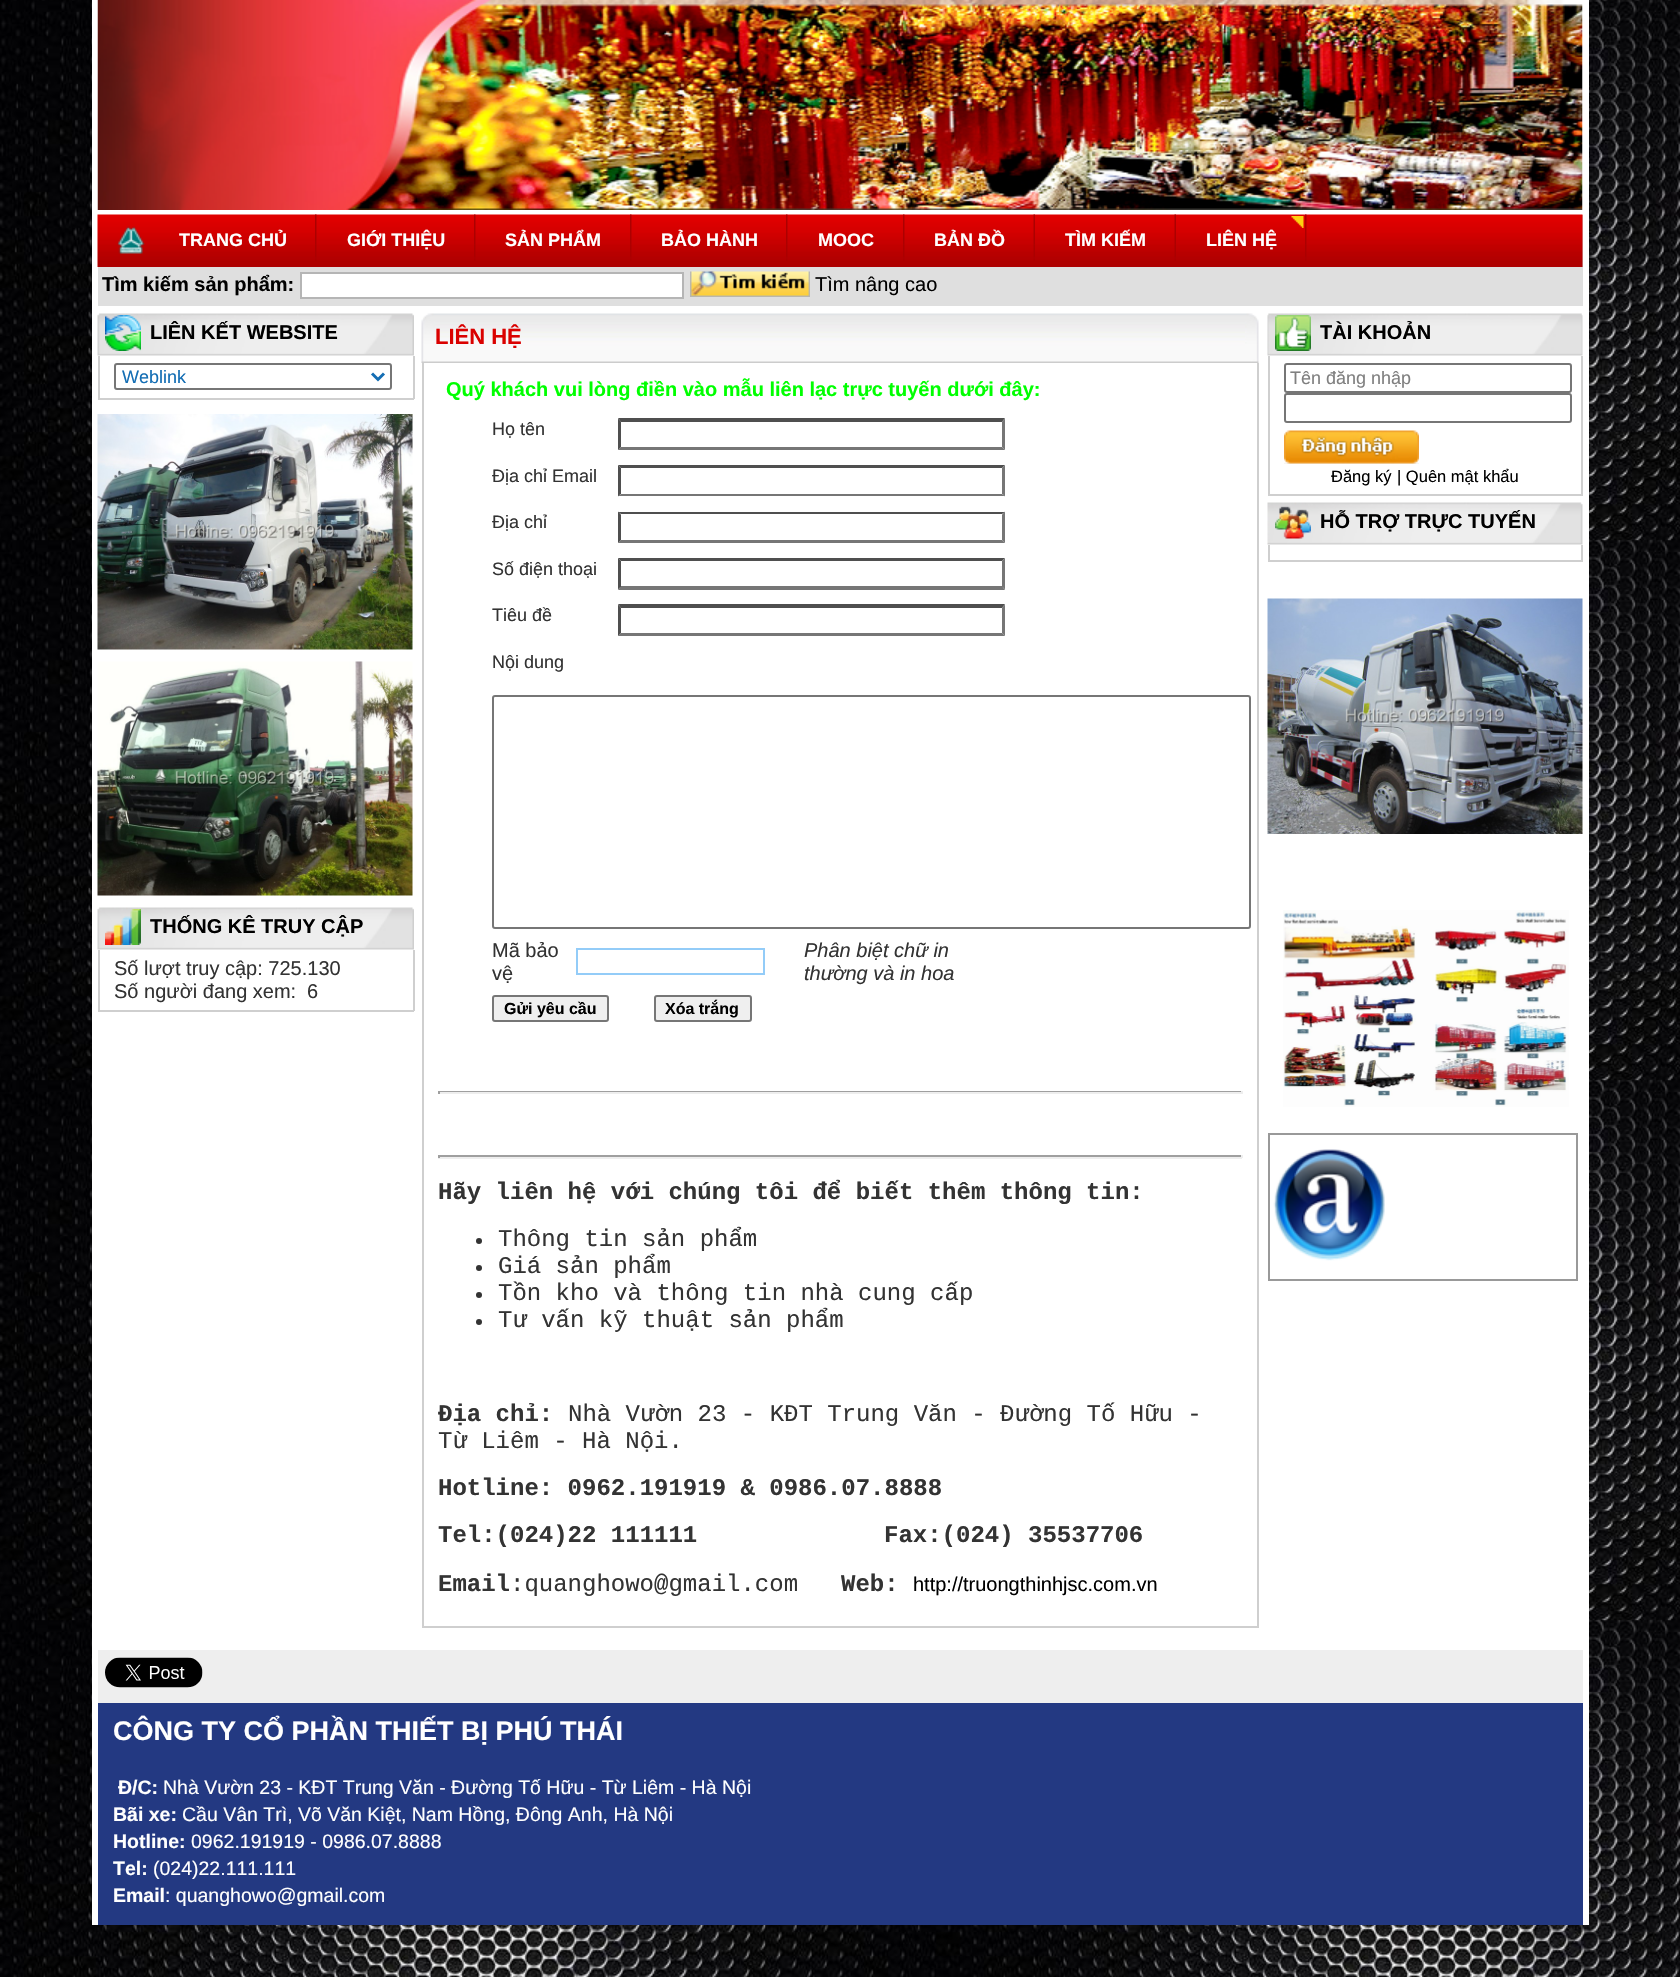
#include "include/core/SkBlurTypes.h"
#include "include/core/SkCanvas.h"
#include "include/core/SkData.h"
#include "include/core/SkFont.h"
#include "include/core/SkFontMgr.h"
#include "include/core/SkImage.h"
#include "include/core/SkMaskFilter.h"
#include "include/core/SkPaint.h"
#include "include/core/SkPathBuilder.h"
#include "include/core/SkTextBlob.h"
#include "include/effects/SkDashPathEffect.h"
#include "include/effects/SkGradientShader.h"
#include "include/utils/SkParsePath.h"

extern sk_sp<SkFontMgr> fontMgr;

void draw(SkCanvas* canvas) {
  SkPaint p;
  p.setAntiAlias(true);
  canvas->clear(SK_ColorWHITE);
  canvas->drawImageRect(SkImages::DeferredFromEncodedData(SkData::MakeFromFileName("images/1.png")), SkRect::MakeLTRB(0, 0, 1680, 1977), SkSamplingOptions());
  p.setColor(SK_ColorWHITE);
  canvas->drawRect(SkRect::MakeLTRB(92, 0, 1589, 1925), p);
  canvas->drawImageRect(SkImages::DeferredFromEncodedData(SkData::MakeFromFileName("images/2.png")), SkRect::MakeLTRB(97, 0, 1583, 210), SkSamplingOptions());
  p.setColor(SkColorSetRGB(204, 204, 204));
  canvas->drawRect(SkRect::MakeLTRB(1582, 215, 1583, 267), p);
  canvas->drawImageRect(SkImages::DeferredFromEncodedData(SkData::MakeFromFileName("images/3.png")), SkRect::MakeLTRB(97, 214, 1583, 267), SkSamplingOptions());
  canvas->drawImageRect(SkImages::DeferredFromEncodedData(SkData::MakeFromFileName("images/4.png")), SkRect::MakeLTRB(117, 226, 145, 254), SkSamplingOptions());
  canvas->drawImageRect(SkImages::DeferredFromEncodedData(SkData::MakeFromFileName("images/5.png")), SkRect::MakeLTRB(315, 214, 317, 261), SkSamplingOptions());
  canvas->drawImageRect(SkImages::DeferredFromEncodedData(SkData::MakeFromFileName("images/5.png")), SkRect::MakeLTRB(474, 214, 476, 261), SkSamplingOptions());
  canvas->drawImageRect(SkImages::DeferredFromEncodedData(SkData::MakeFromFileName("images/5.png")), SkRect::MakeLTRB(630, 214, 632, 261), SkSamplingOptions());
  canvas->drawImageRect(SkImages::DeferredFromEncodedData(SkData::MakeFromFileName("images/5.png")), SkRect::MakeLTRB(786, 214, 788, 261), SkSamplingOptions());
  canvas->drawImageRect(SkImages::DeferredFromEncodedData(SkData::MakeFromFileName("images/5.png")), SkRect::MakeLTRB(903, 214, 905, 261), SkSamplingOptions());
  canvas->drawImageRect(SkImages::DeferredFromEncodedData(SkData::MakeFromFileName("images/6.png")), SkRect::MakeLTRB(1033, 214, 1035, 261), SkSamplingOptions());
  canvas->drawImageRect(SkImages::DeferredFromEncodedData(SkData::MakeFromFileName("images/6.png")), SkRect::MakeLTRB(1174, 214, 1176, 261), SkSamplingOptions());
  canvas->drawImageRect(SkImages::DeferredFromEncodedData(SkData::MakeFromFileName("images/5.png")), SkRect::MakeLTRB(1305, 214, 1307, 261), SkSamplingOptions());
  canvas->drawImageRect(SkImages::DeferredFromEncodedData(SkData::MakeFromFileName("images/7.png")), SkRect::MakeLTRB(1291, 216, 1304, 228), SkSamplingOptions());
  p.setColor(SkColorSetRGB(223, 223, 223));
  canvas->drawRect(SkRect::MakeLTRB(98, 267, 1583, 306), p);
  p.setColor(SK_ColorWHITE);
  canvas->drawRect(SkRect::MakeLTRB(301, 273, 683, 298), p);
  p.setStyle(SkPaint::kStroke_Style);
  p.setStrokeWidth(2);
  p.setColor(SkColorSetRGB(181, 181, 181));
  canvas->drawRect(SkRect::MakeLTRB(301, 273, 683, 298), p);
  canvas->drawImageRect(SkImages::DeferredFromEncodedData(SkData::MakeFromFileName("images/8.png")), SkRect::MakeLTRB(690, 271, 810, 297), SkSamplingOptions());
  canvas->drawImageRect(SkImages::DeferredFromEncodedData(SkData::MakeFromFileName("images/9.png")), SkRect::MakeLTRB(97, 313, 414, 356), SkSamplingOptions());
  canvas->drawImageRect(SkImages::DeferredFromEncodedData(SkData::MakeFromFileName("images/10.png")), SkRect::MakeLTRB(105, 315, 141, 351), SkSamplingOptions());
  p.setStyle(SkPaint::kFill_Style);
  p.setColor(SkColorSetRGB(207, 207, 207));
  canvas->drawRect(SkRect::MakeLTRB(413, 356, 415, 399), p);
  canvas->drawRect(SkRect::MakeLTRB(98, 398, 414, 400), p);
  canvas->drawRect(SkRect::MakeLTRB(98, 356, 100, 399), p);
  p.setStyle(SkPaint::kStroke_Style);
  p.setColor(SkColorSetRGB(118, 118, 118));
  canvas->drawRoundRect(SkRect::MakeLTRB(115, 364, 391, 389), 2, 2, p);
  p.setStrokeWidth(3);
  p.setColor(SkColorSetRGB(20, 110, 180));
  canvas->drawPath(SkPathBuilder().moveTo(372, 373.5f).lineTo(378, 379.5f).lineTo(384, 373.5f).detach(), p);
  canvas->drawImageRect(SkImages::DeferredFromEncodedData(SkData::MakeFromFileName("images/11.png")), SkRect::MakeLTRB(97, 414, 413, 650), SkSamplingOptions());
  canvas->drawImageRect(SkImages::DeferredFromEncodedData(SkData::MakeFromFileName("images/12.png")), SkRect::MakeLTRB(97, 661, 413, 896), SkSamplingOptions());
  canvas->drawImageRect(SkImages::DeferredFromEncodedData(SkData::MakeFromFileName("images/9.png")), SkRect::MakeLTRB(97, 907, 414, 950), SkSamplingOptions());
  canvas->drawImageRect(SkImages::DeferredFromEncodedData(SkData::MakeFromFileName("images/13.png")), SkRect::MakeLTRB(105, 909, 141, 945), SkSamplingOptions());
  p.setStyle(SkPaint::kFill_Style);
  p.setColor(SkColorSetRGB(207, 207, 207));
  canvas->drawRect(SkRect::MakeLTRB(413, 950, 415, 1011), p);
  canvas->drawRect(SkRect::MakeLTRB(98, 1010, 414, 1012), p);
  canvas->drawRect(SkRect::MakeLTRB(98, 950, 100, 1011), p);
  canvas->drawImageRect(SkImages::DeferredFromEncodedData(SkData::MakeFromFileName("images/14.png")), SkRect::MakeLTRB(421, 313, 435, 363), SkSamplingOptions());
  canvas->drawImageRect(SkImages::DeferredFromEncodedData(SkData::MakeFromFileName("images/15.png")), SkRect::MakeLTRB(435, 313, 1245, 363), SkSamplingOptions());
  canvas->drawImageRect(SkImages::DeferredFromEncodedData(SkData::MakeFromFileName("images/16.png")), SkRect::MakeLTRB(1245, 313, 1259, 363), SkSamplingOptions());
  canvas->drawRect(SkRect::MakeLTRB(1257, 363, 1259, 1628), p);
  canvas->drawRect(SkRect::MakeLTRB(422, 1626, 1259, 1628), p);
  canvas->drawRect(SkRect::MakeLTRB(422, 363, 424, 1628), p);
  p.setColor(SkColorSetRGB(79, 79, 79));
  canvas->drawPath(SkPathBuilder().moveTo(618, 418).lineTo(1005, 418).lineTo(1002, 422).lineTo(621, 422).close().detach(), p);
  p.setColor(SkColorSetRGB(118, 118, 118));
  canvas->drawPath(SkPathBuilder().moveTo(1005, 418.5f).lineTo(1005, 450).lineTo(1002, 447).lineTo(1002, 421.5f).close().detach(), p);
  canvas->drawPath(SkPathBuilder().moveTo(1005, 450).lineTo(618, 450).lineTo(621, 447).lineTo(1002, 447).close().detach(), p);
  p.setColor(SkColorSetRGB(79, 79, 79));
  canvas->drawPath(SkPathBuilder().moveTo(618, 450).lineTo(618, 418.5f).lineTo(621, 421.5f).lineTo(621, 447).close().detach(), p);
  canvas->drawPath(SkPathBuilder().moveTo(618, 465).lineTo(1005, 465).lineTo(1002, 468).lineTo(621, 468).close().detach(), p);
  p.setColor(SkColorSetRGB(118, 118, 118));
  canvas->drawPath(SkPathBuilder().moveTo(1005, 465).lineTo(1005, 496.5f).lineTo(1002, 493.5f).lineTo(1002, 468).close().detach(), p);
  canvas->drawPath(SkPathBuilder().moveTo(1005, 496).lineTo(618, 496).lineTo(621, 494).lineTo(1002, 494).close().detach(), p);
  p.setColor(SkColorSetRGB(79, 79, 79));
  canvas->drawPath(SkPathBuilder().moveTo(618, 496.5f).lineTo(618, 465).lineTo(621, 468).lineTo(621, 493.5f).close().detach(), p);
  canvas->drawPath(SkPathBuilder().moveTo(618, 512).lineTo(1005, 512).lineTo(1002, 514).lineTo(621, 514).close().detach(), p);
  p.setColor(SkColorSetRGB(118, 118, 118));
  canvas->drawPath(SkPathBuilder().moveTo(1005, 511.5f).lineTo(1005, 543).lineTo(1002, 540).lineTo(1002, 514.5f).close().detach(), p);
  canvas->drawPath(SkPathBuilder().moveTo(1005, 543).lineTo(618, 543).lineTo(621, 540).lineTo(1002, 540).close().detach(), p);
  p.setColor(SkColorSetRGB(79, 79, 79));
  canvas->drawPath(SkPathBuilder().moveTo(618, 543).lineTo(618, 511.5f).lineTo(621, 514.5f).lineTo(621, 540).close().detach(), p);
  canvas->drawPath(SkPathBuilder().moveTo(618, 558).lineTo(1005, 558).lineTo(1002, 561).lineTo(621, 561).close().detach(), p);
  p.setColor(SkColorSetRGB(118, 118, 118));
  canvas->drawPath(SkPathBuilder().moveTo(1005, 558).lineTo(1005, 589.5f).lineTo(1002, 586.5f).lineTo(1002, 561).close().detach(), p);
  canvas->drawPath(SkPathBuilder().moveTo(1005, 590).lineTo(618, 590).lineTo(621, 586).lineTo(1002, 586).close().detach(), p);
  p.setColor(SkColorSetRGB(79, 79, 79));
  canvas->drawPath(SkPathBuilder().moveTo(618, 589.5f).lineTo(618, 558).lineTo(621, 561).lineTo(621, 586.5f).close().detach(), p);
  canvas->drawPath(SkPathBuilder().moveTo(618, 604).lineTo(1005, 604).lineTo(1002, 608).lineTo(621, 608).close().detach(), p);
  p.setColor(SkColorSetRGB(118, 118, 118));
  canvas->drawPath(SkPathBuilder().moveTo(1005, 604.5f).lineTo(1005, 636).lineTo(1002, 633).lineTo(1002, 607.5f).close().detach(), p);
  canvas->drawPath(SkPathBuilder().moveTo(1005, 636).lineTo(618, 636).lineTo(621, 633).lineTo(1002, 633).close().detach(), p);
  p.setColor(SkColorSetRGB(79, 79, 79));
  canvas->drawPath(SkPathBuilder().moveTo(618, 636).lineTo(618, 604.5f).lineTo(621, 607.5f).lineTo(621, 633).close().detach(), p);
  p.setStyle(SkPaint::kStroke_Style);
  p.setStrokeWidth(2);
  p.setColor(SkColorSetRGB(118, 118, 118));
  canvas->drawRoundRect(SkRect::MakeLTRB(493, 696, 1250, 928), 2, 2, p);
  p.setColor(SkColorSetRGB(147, 204, 248));
  canvas->drawRect(SkRect::MakeLTRB(577, 949, 764, 974), p);
  p.setStyle(SkPaint::kFill_Style);
  p.setColor(SkColorSetRGB(239, 239, 239));
  canvas->drawRoundRect(SkRect::MakeLTRB(493, 996, 608, 1021), 2, 2, p);
  p.setStyle(SkPaint::kStroke_Style);
  p.setColor(SkColorSetRGB(118, 118, 118));
  canvas->drawRoundRect(SkRect::MakeLTRB(493, 996, 608, 1021), 2, 2, p);
  p.setStyle(SkPaint::kFill_Style);
  p.setColor(SkColorSetRGB(239, 239, 239));
  canvas->drawRoundRect(SkRect::MakeLTRB(655, 996, 751, 1021), 2, 2, p);
  p.setStyle(SkPaint::kStroke_Style);
  p.setColor(SkColorSetRGB(118, 118, 118));
  canvas->drawRoundRect(SkRect::MakeLTRB(655, 996, 751, 1021), 2, 2, p);
  p.setStyle(SkPaint::kFill_Style);
  p.setColor(SkColorSetRGB(159, 159, 159));
  canvas->drawRect(SkRect::MakeLTRB(438, 1091, 1242, 1092), p);
  p.setColor(SkColorSetRGB(238, 238, 238));
  canvas->drawRect(SkRect::MakeLTRB(1241, 1091, 1243, 1094), p);
  canvas->drawRect(SkRect::MakeLTRB(438, 1092, 1242, 1094), p);
  p.setColor(SkColorSetRGB(159, 159, 159));
  canvas->drawRect(SkRect::MakeLTRB(438, 1091, 440, 1094), p);
  canvas->drawRect(SkRect::MakeLTRB(438, 1155, 1242, 1157), p);
  p.setColor(SkColorSetRGB(238, 238, 238));
  canvas->drawRect(SkRect::MakeLTRB(1241, 1155, 1243, 1158), p);
  canvas->drawRect(SkRect::MakeLTRB(438, 1157, 1242, 1159), p);
  p.setColor(SkColorSetRGB(159, 159, 159));
  canvas->drawRect(SkRect::MakeLTRB(438, 1155, 440, 1158), p);
  p.setColor(SkColorSetRGB(51, 51, 51));
  canvas->drawCircle(479, 1241, 3, p);
  canvas->drawCircle(479, 1268, 3, p);
  canvas->drawCircle(479, 1295, 3, p);
  canvas->drawCircle(479, 1322, 3, p);
  canvas->drawImageRect(SkImages::DeferredFromEncodedData(SkData::MakeFromFileName("images/17.png")), SkRect::MakeLTRB(1267, 313, 1583, 356), SkSamplingOptions());
  canvas->drawImageRect(SkImages::DeferredFromEncodedData(SkData::MakeFromFileName("images/18.png")), SkRect::MakeLTRB(1275, 315, 1311, 351), SkSamplingOptions());
  p.setColor(SkColorSetRGB(207, 207, 207));
  canvas->drawRect(SkRect::MakeLTRB(1581, 356, 1583, 495), p);
  canvas->drawRect(SkRect::MakeLTRB(1268, 494, 1583, 496), p);
  canvas->drawRect(SkRect::MakeLTRB(1268, 356, 1270, 495), p);
  p.setStyle(SkPaint::kStroke_Style);
  p.setColor(SkColorSetRGB(118, 118, 118));
  canvas->drawRoundRect(SkRect::MakeLTRB(1285, 364, 1571, 392), 2, 2, p);
  canvas->drawRoundRect(SkRect::MakeLTRB(1285, 394, 1571, 422), 2, 2, p);
  p.setStyle(SkPaint::kFill_Style);
  p.setColor(SkColorSetRGB(239, 239, 239));
  canvas->drawRect(SkRect::MakeLTRB(1284, 463, 1419, 464), p);
  canvas->drawImageRect(SkImages::DeferredFromEncodedData(SkData::MakeFromFileName("images/19.png")), SkRect::MakeLTRB(1284, 430, 1419, 464), SkSamplingOptions());
  canvas->drawImageRect(SkImages::DeferredFromEncodedData(SkData::MakeFromFileName("images/20.png")), SkRect::MakeLTRB(1267, 502, 1583, 545), SkSamplingOptions());
  canvas->drawImageRect(SkImages::DeferredFromEncodedData(SkData::MakeFromFileName("images/21.png")), SkRect::MakeLTRB(1275, 506, 1311, 539), SkSamplingOptions());
  p.setColor(SkColorSetRGB(207, 207, 207));
  canvas->drawRect(SkRect::MakeLTRB(1581, 545, 1583, 561), p);
  canvas->drawRect(SkRect::MakeLTRB(1268, 560, 1583, 562), p);
  canvas->drawRect(SkRect::MakeLTRB(1268, 545, 1270, 561), p);
  canvas->drawImageRect(SkImages::DeferredFromEncodedData(SkData::MakeFromFileName("images/22.png")), SkRect::MakeLTRB(1267, 598, 1583, 834), SkSamplingOptions());
  canvas->drawImageRect(SkImages::DeferredFromEncodedData(SkData::MakeFromFileName("images/23.png")), SkRect::MakeLTRB(1283, 910, 1569, 1107), SkSamplingOptions());
  p.setStyle(SkPaint::kStroke_Style);
  p.setColor(SkColorSetRGB(153, 153, 153));
  canvas->drawRect(SkRect::MakeLTRB(1269, 1134, 1577, 1280), p);
  canvas->drawImageRect(SkImages::DeferredFromEncodedData(SkData::MakeFromFileName("images/24.png")), SkRect::MakeLTRB(1273, 1149, 1385, 1261), SkSamplingOptions());
  p.setStyle(SkPaint::kFill_Style);
  p.setColor(SkColorSetRGB(238, 238, 238));
  canvas->drawRect(SkRect::MakeLTRB(98, 1650, 1583, 1703), p);
  canvas->drawImageRect(SkImages::DeferredFromEncodedData(SkData::MakeFromFileName("images/25.png")), SkRect::MakeLTRB(105, 1657, 203, 1688), SkSamplingOptions());
  p.setColor(SkColorSetRGB(35, 57, 130));
  canvas->drawRect(SkRect::MakeLTRB(98, 1703, 1583, 1925), p);
  SkFont font1(fontMgr->matchFamilyStyle("Liberation Sans", SkFontStyle::Bold()), 18);
  font1.setSubpixel(true);
  p.setColor(SK_ColorWHITE);
  canvas->drawString("TRANG CHỦ", 179, 246, font1, p);
  canvas->drawString("GIỚI THIỆU", 347, 246, font1, p);
  canvas->drawString("SẢN PHẨM", 505, 246, font1, p);
  canvas->drawString("BẢO HÀNH", 661, 246, font1, p);
  canvas->drawString("MOOC", 818, 246, font1, p);
  canvas->drawString("BẢN ĐỒ", 934, 246, font1, p);
  canvas->drawString("TÌM KIẾM", 1065, 246, font1, p);
  canvas->drawString("LIÊN HỆ", 1206, 246, font1, p);
  SkFont font2(fontMgr->matchFamilyStyle("Liberation Sans", SkFontStyle::Bold()), 20);
  font2.setSubpixel(true);
  p.setColor(SK_ColorBLACK);
  canvas->drawString("Tìm kiếm sản phẩm:", 102, 291, font2, p);
  SkFont font3(fontMgr->matchFamilyStyle("Liberation Sans", SkFontStyle::Normal()), 20);
  font3.setSubpixel(true);
  canvas->drawString("Tìm nâng cao", 815, 291, font3, p);
  canvas->drawString("LIÊN KẾT WEBSITE", 150, 339, font2, p);
  SkFont font4(fontMgr->matchFamilyStyle("Liberation Sans", SkFontStyle::Normal()), 18);
  font4.setSubpixel(true);
  p.setColor(SkColorSetRGB(20, 110, 180));
  canvas->drawString("Weblink", 122, 383, font4, p);
  p.setColor(SK_ColorBLACK);
  canvas->drawString("THỐNG KÊ TRUY CẬP", 150, 933, font2, p);
  p.setColor(SkColorSetRGB(51, 51, 51));
  canvas->drawString("Số lượt truy cập: 725.130", 114, 975, font3, p);
  canvas->drawString("Số người đang xem:", 114, 998, font3, p);
  canvas->drawString("6", 307, 998, font3, p);
  SkFont font5(fontMgr->matchFamilyStyle("Liberation Sans", SkFontStyle::Bold()), 22);
  font5.setSubpixel(true);
  p.setColor(SkColorSetRGB(218, 1, 0));
  canvas->drawString("LIÊN HỆ", 435, 344, font5, p);
  p.setColor(SkColorSetRGB(0, 255, 0));
  canvas->drawString("Quý khách vui lòng điền vào mẫu liên lạc trực tuyến dưới đây:", 446, 396, font2, p);
  p.setColor(SkColorSetRGB(51, 51, 51));
  canvas->drawString("Họ tên", 492, 435, font4, p);
  canvas->drawString("Địa chỉ Email", 492, 482, font4, p);
  canvas->drawString("Địa chỉ", 492, 528, font4, p);
  canvas->drawString("Số điện thoại", 492, 575, font4, p);
  canvas->drawString("Tiêu đề", 492, 621, font4, p);
  canvas->drawString("Nội dung", 492, 668, font4, p);
  canvas->drawString("Mã bảo", 492, 957, font3, p);
  canvas->drawString("vệ", 492, 980, font3, p);
  SkFont font6(fontMgr->matchFamilyStyle("Liberation Sans", SkFontStyle::Italic()), 20);
  font6.setSubpixel(true);
  canvas->drawString("Phân biệt chữ in", 804, 957, font6, p);
  canvas->drawString("thường và in hoa", 804, 980, font6, p);
  SkFont font7(fontMgr->matchFamilyStyle("Liberation Sans", SkFontStyle::Bold()), 16);
  font7.setSubpixel(true);
  p.setColor(SK_ColorBLACK);
  canvas->drawString("Gửi yêu cầu", 504, 1014, font7, p);
  canvas->drawString("Xóa trắng", 665, 1014, font7, p);
  SkFont font8(fontMgr->matchFamilyStyle("Liberation Mono", SkFontStyle::Bold()), 24);
  font8.setSubpixel(true);
  p.setColor(SkColorSetRGB(51, 51, 51));
  canvas->drawString("Hãy liên hệ với chúng tôi để biết thêm thông tin:", 438, 1199, font8, p);
  SkFont font9(fontMgr->matchFamilyStyle("Liberation Mono", SkFontStyle::Normal()), 24);
  font9.setSubpixel(true);
  canvas->drawString("Thông tin sản phẩm", 498, 1246, font9, p);
  canvas->drawString("Giá sản phẩm", 498, 1273, font9, p);
  canvas->drawString("Tồn kho và thông tin nhà cung cấp", 498, 1300, font9, p);
  canvas->drawString("Tư vấn kỹ thuật sản phẩm", 498, 1327, font9, p);
  canvas->drawString("Địa chỉ:", 438, 1421, font8, p);
  canvas->drawString("Nhà Vườn 23 - KĐT Trung Văn - Đường Tố Hữu -", 568, 1421, font9, p);
  canvas->drawString("Từ Liêm - Hà Nội.", 438, 1448, font9, p);
  canvas->drawString("Hotline: 0962.191919 & 0986.07.8888", 438, 1495, font8, p);
  canvas->drawString("Tel:(024)22 111111", 438, 1542, font8, p);
  canvas->drawString("Fax:(024) 35537706", 884, 1542, font8, p);
  canvas->drawString("Email", 438, 1591, font8, p);
  canvas->drawString(":quanghowo@gmail.com", 510, 1591, font9, p);
  canvas->drawString("Web:", 841, 1591, font8, p);
  p.setColor(SK_ColorBLACK);
  canvas->drawString("http://truongthinhjsc.com.vn", 913, 1591, font3, p);
  canvas->drawString("TÀI KHOẢN", 1320, 339, font2, p);
  p.setColor(SkColorSetRGB(128, 128, 128));
  canvas->drawString("Tên đăng nhập", 1290, 384, font4, p);
  SkFont font10(fontMgr->matchFamilyStyle("Liberation Sans", SkFontStyle::Normal()), 16.5f);
  font10.setSubpixel(true);
  p.setColor(SK_ColorBLACK);
  canvas->drawString("Đăng ký", 1331, 482, font10, p);
  canvas->drawString("| Quên mật khẩu", 1397, 482, font10, p);
  canvas->drawString("HỖ TRỢ TRỰC TUYẾN", 1320, 528, font2, p);
  SkFont font11(fontMgr->matchFamilyStyle("Liberation Sans", SkFontStyle::Bold()), 27);
  font11.setSubpixel(true);
  p.setColor(SK_ColorWHITE);
  canvas->drawString("CÔNG TY CỔ PHẦN THIẾT BỊ PHÚ THÁI", 113, 1740, font11, p);
  SkFont font12(fontMgr->matchFamilyStyle("Liberation Sans", SkFontStyle::Bold()), 19.5f);
  font12.setSubpixel(true);
  canvas->drawString("Đ/C:", 118, 1794, font12, p);
  SkFont font13(fontMgr->matchFamilyStyle("Liberation Sans", SkFontStyle::Normal()), 19.5f);
  font13.setSubpixel(true);
  canvas->drawString("Nhà Vườn 23 - KĐT Trung Văn - Đường Tố Hữu - Từ Liêm - Hà Nội", 163, 1794, font13, p);
  canvas->drawString("Bãi xe:", 113, 1821, font12, p);
  canvas->drawString("Cầu Vân Trì, Võ Văn Kiệt, Nam Hồng, Đông Anh, Hà Nội", 182, 1821, font13, p);
  canvas->drawString("Hotline:", 113, 1848, font12, p);
  canvas->drawString("0962.191919 - 0986.07.8888", 191, 1848, font13, p);
  canvas->drawString("Tel:", 113, 1875, font12, p);
  canvas->drawString("(024)22.111.111", 153, 1875, font13, p);
  canvas->drawString("Email", 113, 1902, font12, p);
  canvas->drawString(": quanghowo@gmail.com", 165, 1902, font13, p);
}
